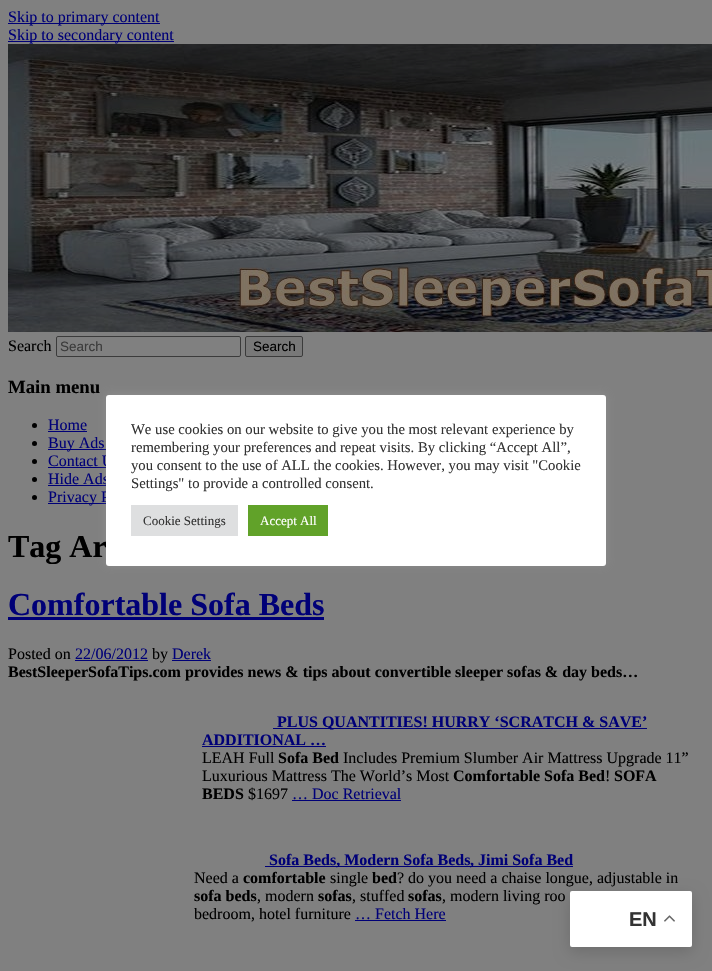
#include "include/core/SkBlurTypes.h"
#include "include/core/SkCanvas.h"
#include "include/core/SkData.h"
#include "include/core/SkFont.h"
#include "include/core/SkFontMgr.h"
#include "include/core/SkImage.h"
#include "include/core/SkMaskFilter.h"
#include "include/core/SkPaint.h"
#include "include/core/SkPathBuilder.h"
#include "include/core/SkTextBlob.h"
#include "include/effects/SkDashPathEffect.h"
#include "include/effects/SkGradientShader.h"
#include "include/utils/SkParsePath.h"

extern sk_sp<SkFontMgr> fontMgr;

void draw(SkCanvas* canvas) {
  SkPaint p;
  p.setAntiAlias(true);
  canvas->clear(SkColorSetRGB(128, 128, 128));
  p.setColor(SkColorSetRGB(0, 0, 119));
  canvas->drawRect(SkRect::MakeLTRB(8, 23, 160, 24), p);
  canvas->drawRect(SkRect::MakeLTRB(8, 41, 174, 42), p);
  canvas->drawImageRect(SkImages::DeferredFromEncodedData(SkData::MakeFromFileName("images/1.png")), SkRect::MakeLTRB(8, 44, 712, 332), SkSamplingOptions());
  p.setStyle(SkPaint::kStroke_Style);
  p.setStrokeWidth(1);
  p.setColor(SkColorSetRGB(59, 59, 59));
  canvas->drawRoundRect(SkRect::MakeLTRB(56.5f, 336.5f, 240.5f, 356.5f), 1.5f, 1.5f, p);
  p.setStyle(SkPaint::kFill_Style);
  p.setColor(SkColorSetRGB(120, 120, 120));
  canvas->drawRoundRect(SkRect::MakeLTRB(245.5f, 336.5f, 302.5f, 356.5f), 1.5f, 1.5f, p);
  p.setStyle(SkPaint::kStroke_Style);
  p.setColor(SkColorSetRGB(59, 59, 59));
  canvas->drawRoundRect(SkRect::MakeLTRB(245.5f, 336.5f, 302.5f, 356.5f), 1.5f, 1.5f, p);
  p.setStyle(SkPaint::kFill_Style);
  p.setColor(SK_ColorBLACK);
  canvas->drawCircle(34.5f, 425.5f, 2.5f, p);
  p.setColor(SkColorSetRGB(0, 0, 119));
  canvas->drawRect(SkRect::MakeLTRB(48, 431, 87, 432), p);
  p.setColor(SK_ColorBLACK);
  canvas->drawCircle(34.5f, 443.5f, 2.5f, p);
  p.setColor(SkColorSetRGB(0, 0, 119));
  canvas->drawRect(SkRect::MakeLTRB(48, 449, 106, 450), p);
  p.setColor(SK_ColorBLACK);
  canvas->drawCircle(34.5f, 461.5f, 2.5f, p);
  p.setColor(SkColorSetRGB(0, 0, 119));
  canvas->drawRect(SkRect::MakeLTRB(48, 467, 106, 468), p);
  p.setColor(SK_ColorBLACK);
  canvas->drawCircle(34.5f, 479.5f, 2.5f, p);
  p.setColor(SkColorSetRGB(0, 0, 119));
  canvas->drawRect(SkRect::MakeLTRB(48, 485, 106, 486), p);
  p.setColor(SK_ColorBLACK);
  canvas->drawCircle(34.5f, 497.5f, 2.5f, p);
  p.setColor(SkColorSetRGB(0, 0, 119));
  canvas->drawRect(SkRect::MakeLTRB(48, 503, 106, 504), p);
  canvas->drawRect(SkRect::MakeLTRB(8, 617, 324, 620), p);
  canvas->drawRect(SkRect::MakeLTRB(75, 660, 148, 661), p);
  canvas->drawRect(SkRect::MakeLTRB(172, 660, 211, 661), p);
  canvas->drawRect(SkRect::MakeLTRB(273, 728, 647, 729), p);
  canvas->drawRect(SkRect::MakeLTRB(202, 746, 326, 747), p);
  canvas->drawRect(SkRect::MakeLTRB(292, 800, 401, 801), p);
  canvas->drawRect(SkRect::MakeLTRB(265, 866, 433, 867), p);
  canvas->drawRect(SkRect::MakeLTRB(433, 866, 573, 867), p);
  canvas->drawRect(SkRect::MakeLTRB(355, 920, 446, 921), p);
  p.setColor(SkColorSetARGB(77, 172, 171, 171));
  p.setMaskFilter(SkMaskFilter::MakeBlur(kNormal_SkBlurStyle, 5));
  canvas->drawRoundRect(SkRect::MakeLTRB(106, 394, 606, 565), 3, 3, p);
  p.setMaskFilter(nullptr);
  p.setColor(SkColorSetARGB(38, 0, 0, 0));
  p.setMaskFilter(SkMaskFilter::MakeBlur(kNormal_SkBlurStyle, 7.5f));
  canvas->drawRoundRect(SkRect::MakeLTRB(570, 896, 692, 952), 2, 2, p);
  p.setMaskFilter(nullptr);
  p.setColor(SK_ColorWHITE);
  canvas->drawRoundRect(SkRect::MakeLTRB(570, 891, 692, 947), 2, 2, p);
  canvas->drawImageRect(SkImages::DeferredFromEncodedData(SkData::MakeFromFileName("images/2.png")), SkRect::MakeLTRB(664, 915, 675, 922), SkSamplingOptions());
  SkFont font1(fontMgr->matchFamilyStyle("Liberation Serif", SkFontStyle::Normal()), 16);
  font1.setSubpixel(true);
  p.setColor(SkColorSetRGB(0, 0, 119));
  canvas->drawString("Skip to primary content", 8, 22, font1, p);
  canvas->drawString("Skip to secondary content", 8, 40, font1, p);
  p.setColor(SK_ColorBLACK);
  canvas->drawString("Search", 8, 351, font1, p);
  SkFont font2(fontMgr->matchFamilyStyle("Liberation Sans", SkFontStyle::Normal()), 13.5f);
  font2.setSubpixel(true);
  p.setColor(SkColorSetRGB(59, 59, 59));
  canvas->drawString("Search", 60, 351, font2, p);
  p.setColor(SK_ColorBLACK);
  canvas->drawString("Search", 253, 351, font2, p);
  SkFont font3(fontMgr->matchFamilyStyle("Liberation Serif", SkFontStyle::Bold()), 18.75f);
  font3.setSubpixel(true);
  canvas->drawString("Main menu", 8, 393, font3, p);
  p.setColor(SkColorSetRGB(0, 0, 119));
  canvas->drawString("Home", 48, 430, font1, p);
  canvas->drawString("Buy Ads", 48, 448, font1, p);
  canvas->drawString("Contact U", 48, 466, font1, p);
  canvas->drawString("Hide Ads", 48, 484, font1, p);
  canvas->drawString("Privacy P", 48, 502, font1, p);
  SkFont font4(fontMgr->matchFamilyStyle("Liberation Serif", SkFontStyle::Bold()), 32);
  font4.setSubpixel(true);
  p.setColor(SK_ColorBLACK);
  canvas->drawString("Tag Ar", 8, 557, font4, p);
  p.setColor(SkColorSetRGB(0, 0, 119));
  canvas->drawString("Comfortable Sofa Beds", 8, 615, font4, p);
  p.setColor(SK_ColorBLACK);
  canvas->drawString("Posted on", 8, 659, font1, p);
  p.setColor(SkColorSetRGB(0, 0, 119));
  canvas->drawString("22/06/2012", 75, 659, font1, p);
  p.setColor(SK_ColorBLACK);
  canvas->drawString("by", 152, 659, font1, p);
  p.setColor(SkColorSetRGB(0, 0, 119));
  canvas->drawString("Derek", 172, 659, font1, p);
  SkFont font5(fontMgr->matchFamilyStyle("Liberation Serif", SkFontStyle::Bold()), 16);
  font5.setSubpixel(true);
  p.setColor(SK_ColorBLACK);
  canvas->drawString("BestSleeperSofaTips.com provides news & tips about convertible sleeper sofas & day beds…", 8, 677, font5, p);
  p.setColor(SkColorSetRGB(0, 0, 119));
  canvas->drawString("PLUS QUANTITIES! HURRY ‘SCRATCH & SAVE’", 277, 727, font5, p);
  canvas->drawString("ADDITIONAL …", 202, 745, font5, p);
  p.setColor(SK_ColorBLACK);
  canvas->drawString("LEAH Full", 202, 763, font1, p);
  canvas->drawString("Sofa Bed", 278, 763, font5, p);
  canvas->drawString("Includes Premium Slumber Air Mattress Upgrade 11”", 343, 763, font1, p);
  canvas->drawString("Luxurious Mattress The World’s Most", 202, 781, font1, p);
  canvas->drawString("Comfortable Sofa Bed", 453, 781, font5, p);
  canvas->drawString("!", 605, 781, font1, p);
  canvas->drawString("SOFA", 614, 781, font5, p);
  canvas->drawString("BEDS", 202, 799, font5, p);
  canvas->drawString("$1697", 248, 799, font1, p);
  p.setColor(SkColorSetRGB(0, 0, 119));
  canvas->drawString("… Doc Retrieval", 292, 799, font1, p);
  canvas->drawString("Sofa Beds, Modern Sofa Beds", 269, 865, font5, p);
  canvas->drawString(", Jimi Sofa Bed", 470, 865, font5, p);
  p.setColor(SK_ColorBLACK);
  canvas->drawString("Need a", 194, 883, font1, p);
  canvas->drawString("comfortable", 243, 883, font5, p);
  canvas->drawString("single", 330, 883, font1, p);
  canvas->drawString("bed", 372, 883, font5, p);
  canvas->drawString("? do you need a chaise longue, adjustable in", 397, 883, font1, p);
  canvas->drawString("sofa beds", 194, 901, font5, p);
  canvas->drawString(", modern", 257, 901, font1, p);
  canvas->drawString("sofas", 318, 901, font5, p);
  canvas->drawString(", stuffed", 352, 901, font1, p);
  canvas->drawString("sofas", 408, 901, font5, p);
  canvas->drawString(", modern living roo", 442, 901, font1, p);
  canvas->drawString("bedroom, hotel furniture", 194, 919, font1, p);
  p.setColor(SkColorSetRGB(0, 0, 119));
  canvas->drawString("… Fetch Here", 355, 919, font1, p);
  p.setColor(SK_ColorWHITE);
  canvas->drawRoundRect(SkRect::MakeLTRB(106, 395, 606, 566), 3, 3, p);
  SkFont font6(fontMgr->matchFamilyStyle("Liberation Serif", SkFontStyle::Normal()), 14.7f);
  font6.setSubpixel(true);
  p.setColor(SkColorSetRGB(51, 51, 51));
  canvas->drawString("We use cookies on our website to give you the most relevant experience by", 131, 434, font6, p);
  canvas->drawString("remembering your preferences and repeat visits. By clicking “Accept All”,", 131, 452, font6, p);
  canvas->drawString("you consent to the use of ALL the cookies. However, you may visit \"Cookie", 131, 470, font6, p);
  canvas->drawString("Settings\" to provide a controlled consent.", 131, 488, font6, p);
  p.setColor(SkColorSetRGB(222, 223, 224));
  canvas->drawRect(SkRect::MakeLTRB(131, 505, 238, 536), p);
  SkFont font7(fontMgr->matchFamilyStyle("Liberation Serif", SkFontStyle::Normal()), 13);
  font7.setSubpixel(true);
  p.setColor(SkColorSetRGB(51, 51, 51));
  canvas->drawString("Cookie Settings", 143, 525, font7, p);
  p.setColor(SkColorSetRGB(97, 162, 41));
  canvas->drawRect(SkRect::MakeLTRB(248, 505, 328, 536), p);
  p.setColor(SK_ColorWHITE);
  canvas->drawString("Accept All", 260, 525, font7, p);
  SkFont font8(fontMgr->matchFamilyStyle("Liberation Sans", SkFontStyle::Bold()), 20);
  font8.setSubpixel(true);
  p.setColor(SkColorSetRGB(51, 51, 51));
  canvas->drawString("EN", 629, 926, font8, p);
}
